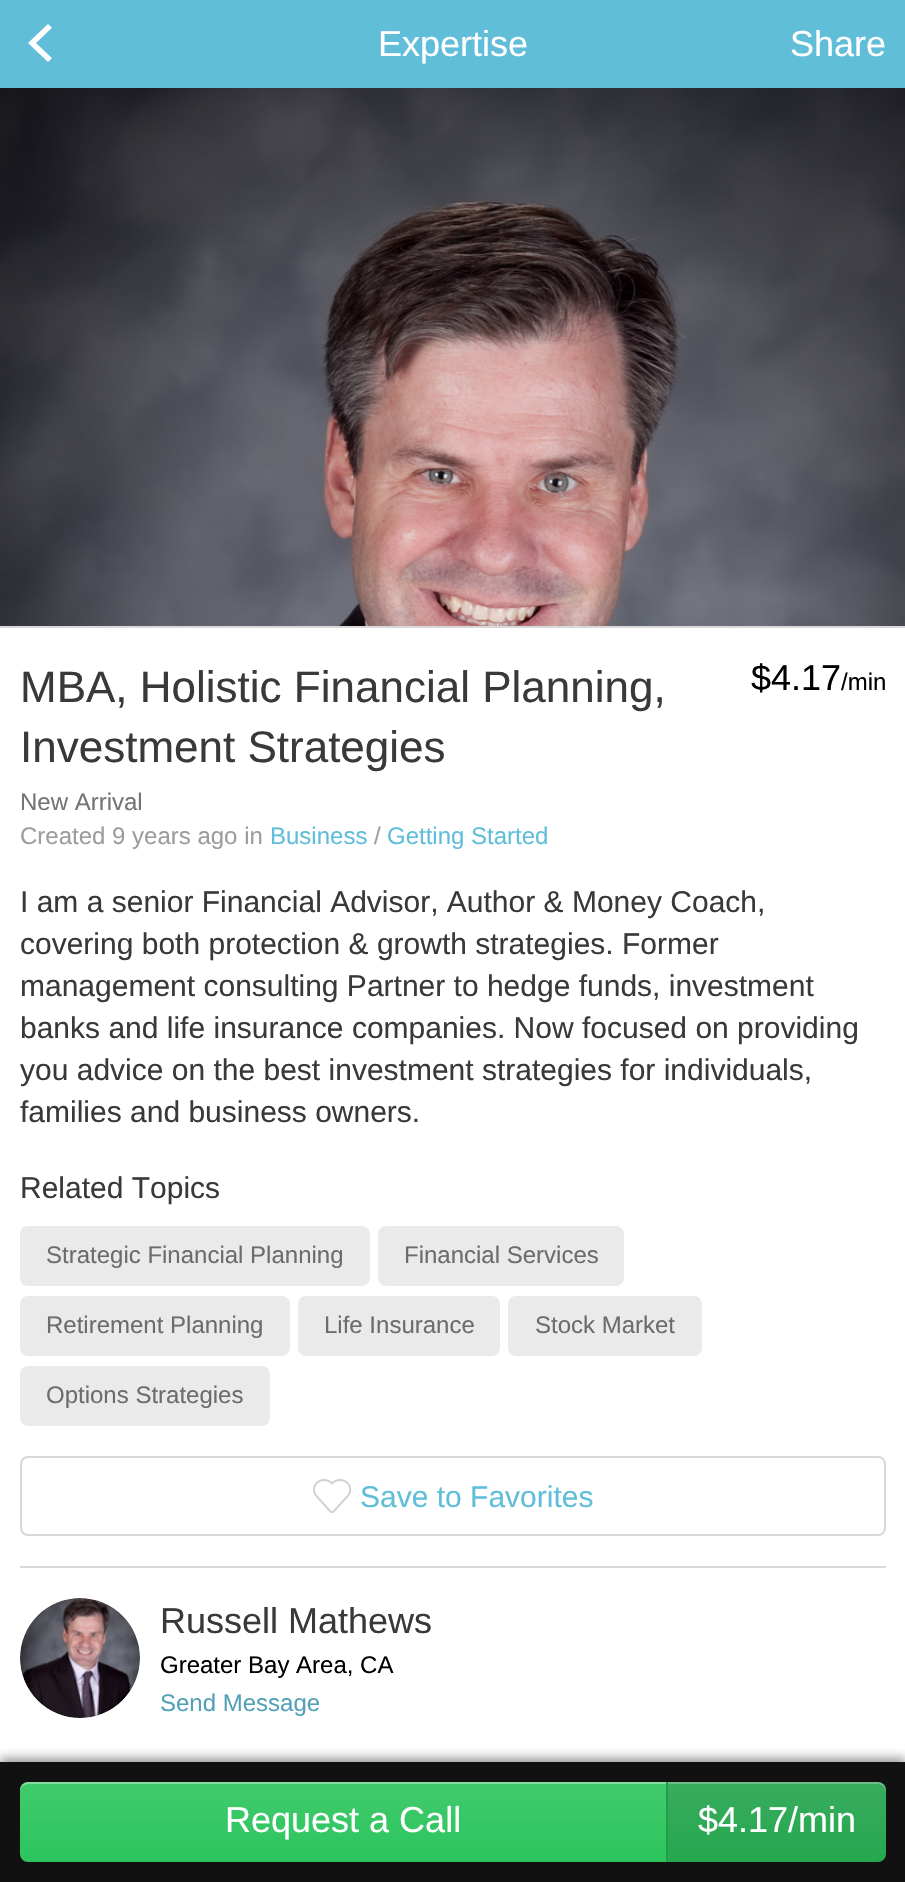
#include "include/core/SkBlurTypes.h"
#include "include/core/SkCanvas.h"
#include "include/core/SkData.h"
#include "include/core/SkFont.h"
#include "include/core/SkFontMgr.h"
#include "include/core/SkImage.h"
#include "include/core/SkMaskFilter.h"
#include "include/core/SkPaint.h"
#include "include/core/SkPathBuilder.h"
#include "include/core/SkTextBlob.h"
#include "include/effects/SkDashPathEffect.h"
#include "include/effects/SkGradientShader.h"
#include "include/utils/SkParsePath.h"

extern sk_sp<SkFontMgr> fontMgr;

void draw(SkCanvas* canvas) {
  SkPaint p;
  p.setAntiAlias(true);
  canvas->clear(SkColorSetRGB(97, 190, 217));
  canvas->drawImageRect(SkImages::DeferredFromEncodedData(SkData::MakeFromFileName("images/1.png")), SkRect::MakeLTRB(28, 24, 52, 62), SkSamplingOptions());
  canvas->drawImageRect(SkImages::DeferredFromEncodedData(SkData::MakeFromFileName("images/2.png")), SkRect::MakeLTRB(0, 88, 905, 626), SkSamplingOptions());
  p.setColor(SK_ColorWHITE);
  canvas->drawRect(SkRect::MakeLTRB(0, 628, 905, 1762), p);
  p.setColor(SkColorSetRGB(217, 217, 217));
  canvas->drawRect(SkRect::MakeLTRB(0, 626, 905, 628), p);
  p.setColor(SkColorSetRGB(234, 234, 234));
  canvas->drawRoundRect(SkRect::MakeLTRB(20, 1226, 370, 1286), 8, 8, p);
  canvas->drawRoundRect(SkRect::MakeLTRB(378, 1226, 624, 1286), 8, 8, p);
  canvas->drawRoundRect(SkRect::MakeLTRB(20, 1296, 290, 1356), 8, 8, p);
  canvas->drawRoundRect(SkRect::MakeLTRB(298, 1296, 500, 1356), 8, 8, p);
  canvas->drawRoundRect(SkRect::MakeLTRB(508, 1296, 702, 1356), 8, 8, p);
  canvas->drawRoundRect(SkRect::MakeLTRB(20, 1366, 270, 1426), 8, 8, p);
  p.setStyle(SkPaint::kStroke_Style);
  p.setStrokeWidth(2);
  p.setColor(SkColorSetRGB(217, 217, 217));
  canvas->drawRoundRect(SkRect::MakeLTRB(21, 1457, 885, 1535), 7, 7, p);
  canvas->drawImageRect(SkImages::DeferredFromEncodedData(SkData::MakeFromFileName("images/3.png")), SkRect::MakeLTRB(313, 1479, 352, 1513), SkSamplingOptions());
  p.setStyle(SkPaint::kFill_Style);
  canvas->drawRect(SkRect::MakeLTRB(20, 1566, 886, 1568), p);
  canvas->drawCircle(80, 1658, 60, p);
  canvas->drawImageRect(SkImages::DeferredFromEncodedData(SkData::MakeFromFileName("images/4.png")), SkRect::MakeLTRB(20, 1598, 140, 1718), SkSamplingOptions());
  p.setColor(SkColorSetARGB(102, 0, 0, 0));
  p.setMaskFilter(SkMaskFilter::MakeBlur(kNormal_SkBlurStyle, 5));
  canvas->drawRect(SkRect::MakeLTRB(0, 1758, 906, 1878), p);
  p.setMaskFilter(nullptr);
  p.setColor(SkColorSetRGB(17, 17, 17));
  canvas->drawRect(SkRect::MakeLTRB(0, 1762, 905, 1882), p);
  {
    const SkColor colors[] = {SkColorSetRGB(65, 202, 109), SkColorSetRGB(44, 197, 93)};
    const float stops[] = {0, 1};
    const SkPoint ends[] = {{453, 1782}, {453, 1862}};
    p.setShader(SkGradientShader::MakeLinear(ends, colors, stops, 2, SkTileMode::kClamp));
    p.setAlpha(255);
  }
  canvas->drawRoundRect(SkRect::MakeLTRB(20, 1782, 886, 1862), 8, 8, p);
  p.setShader(nullptr);
  p.setColor(SkColorSetARGB(89, 255, 255, 255));
  canvas->drawPath(SkPathBuilder().moveTo(28, 1784).lineTo(878, 1784).cubicTo(882, 1784, 886, 1788, 886, 1792).lineTo(886, 1790).cubicTo(886, 1786, 882, 1782, 878, 1782).lineTo(28, 1782).cubicTo(24, 1782, 20, 1786, 20, 1790).lineTo(20, 1792).cubicTo(20, 1788, 24, 1784, 28, 1784).close().detach(), p);
  p.setColor(SkColorSetARGB(38, 0, 0, 0));
  canvas->drawPath(SkPathBuilder().moveTo(666, 1782).lineTo(880, 1782).cubicTo(883.5f, 1782, 886, 1784.5f, 886, 1788).lineTo(886, 1856).cubicTo(886, 1859.5f, 883.5f, 1862, 880, 1862).lineTo(666, 1862).close().detach(), p);
  p.setColor(SkColorSetRGB(35, 157, 74));
  canvas->drawRect(SkRect::MakeLTRB(666, 1782, 668, 1862), p);
  SkFont font1(fontMgr->matchFamilyStyle("Liberation Sans", SkFontStyle::Normal()), 36);
  font1.setSubpixel(true);
  p.setColor(SK_ColorWHITE);
  canvas->drawString("Expertise", 378, 56, font1, p);
  canvas->drawString("Share", 790, 56, font1, p);
  SkFont font2(fontMgr->matchFamilyStyle("Liberation Sans", SkFontStyle::Normal()), 44);
  font2.setSubpixel(true);
  p.setColor(SkColorSetRGB(57, 57, 57));
  canvas->drawString("MBA, Holistic Financial Planning,", 20, 702, font2, p);
  canvas->drawString("Investment Strategies", 20, 762, font2, p);
  p.setColor(SK_ColorBLACK);
  canvas->drawString("$4.17", 751, 690, font1, p);
  SkFont font3(fontMgr->matchFamilyStyle("Liberation Sans", SkFontStyle::Normal()), 24);
  font3.setSubpixel(true);
  canvas->drawString("/min", 841, 690, font3, p);
  p.setColor(SkColorSetRGB(116, 116, 116));
  canvas->drawString("New Arrival", 20, 810, font3, p);
  p.setColor(SkColorSetRGB(156, 156, 156));
  canvas->drawString("Created 9 years ago in", 20, 844, font3, p);
  p.setColor(SkColorSetRGB(97, 190, 217));
  canvas->drawString("Business", 270, 844, font3, p);
  p.setColor(SkColorSetRGB(156, 156, 156));
  canvas->drawString("/", 374, 844, font3, p);
  p.setColor(SkColorSetRGB(97, 190, 217));
  canvas->drawString("Getting Started", 387, 844, font3, p);
  SkFont font4(fontMgr->matchFamilyStyle("Liberation Sans", SkFontStyle::Normal()), 30);
  font4.setSubpixel(true);
  p.setColor(SkColorSetRGB(57, 57, 57));
  canvas->drawString("I am a senior Financial Advisor, Author & Money Coach,", 20, 912, font4, p);
  canvas->drawString("covering both protection & growth strategies. Former", 20, 954, font4, p);
  canvas->drawString("management consulting Partner to hedge funds, investment", 20, 996, font4, p);
  canvas->drawString("banks and life insurance companies. Now focused on providing", 20, 1038, font4, p);
  canvas->drawString("you advice on the best investment strategies for individuals,", 20, 1080, font4, p);
  canvas->drawString("families and business owners.", 20, 1122, font4, p);
  canvas->drawString("Related Topics", 20, 1198, font4, p);
  p.setColor(SkColorSetRGB(108, 108, 108));
  canvas->drawString("Strategic Financial Planning", 46, 1263, font3, p);
  canvas->drawString("Financial Services", 404, 1263, font3, p);
  canvas->drawString("Retirement Planning", 46, 1333, font3, p);
  canvas->drawString("Life Insurance", 324, 1333, font3, p);
  canvas->drawString("Stock Market", 535, 1333, font3, p);
  canvas->drawString("Options Strategies", 46, 1403, font3, p);
  p.setColor(SkColorSetRGB(97, 190, 217));
  canvas->drawString("Save to Favorites", 360, 1507, font4, p);
  p.setColor(SkColorSetRGB(57, 57, 57));
  canvas->drawString("Russell Mathews", 160, 1633, font1, p);
  p.setColor(SK_ColorBLACK);
  canvas->drawString("Greater Bay Area, CA", 160, 1673, font3, p);
  p.setColor(SkColorSetRGB(82, 161, 184));
  canvas->drawString("Send Message", 160, 1711, font3, p);
  p.setColor(SK_ColorWHITE);
  canvas->drawString("Request a Call", 225, 1832, font1, p);
  canvas->drawString("$4.17/min", 698, 1832, font1, p);
}
